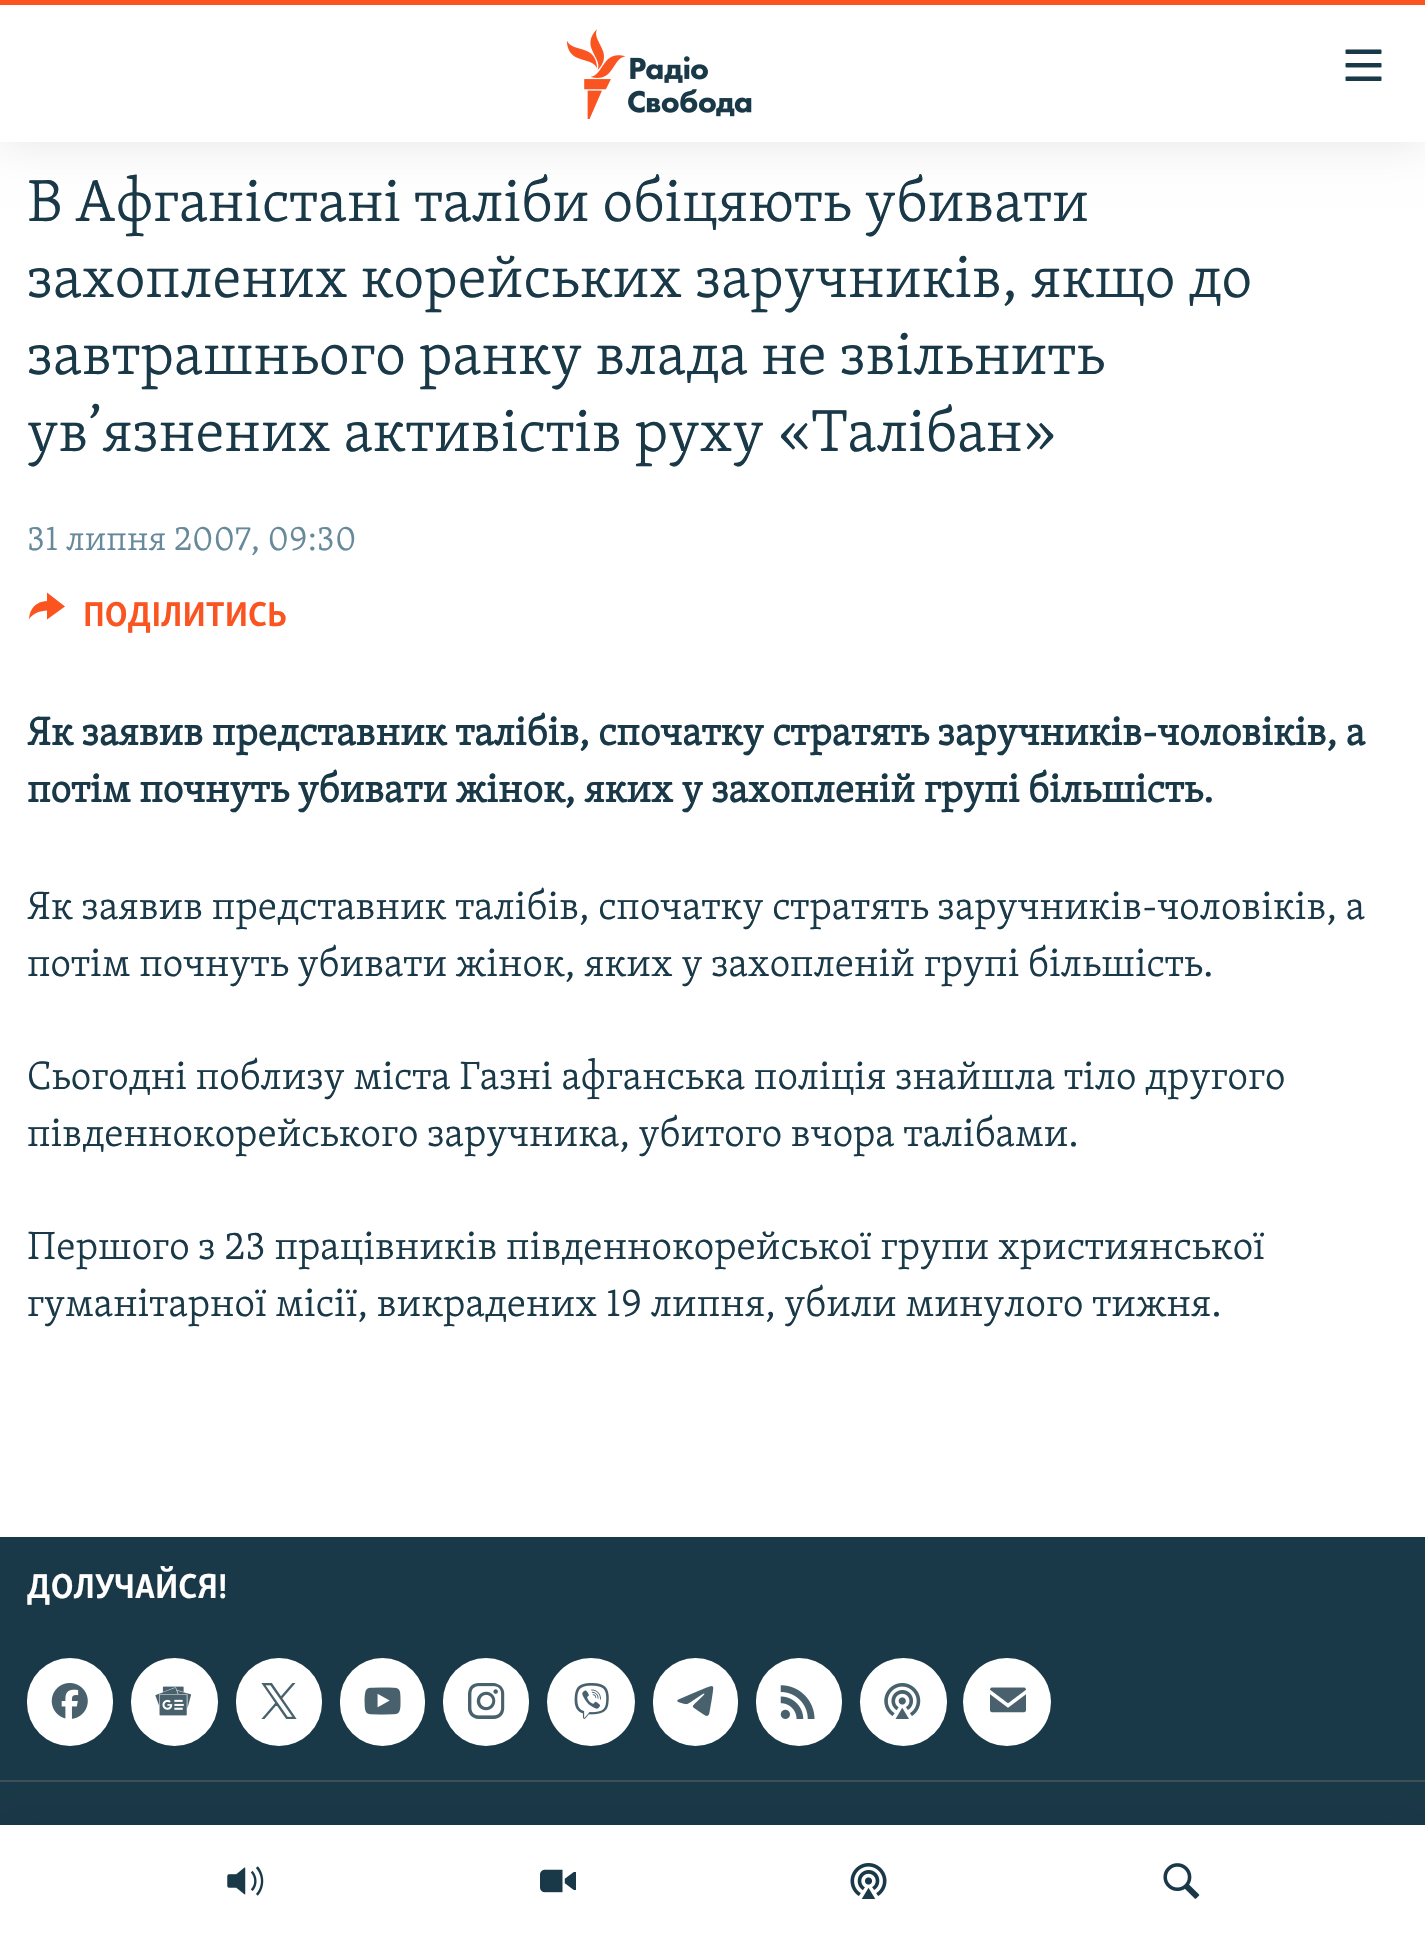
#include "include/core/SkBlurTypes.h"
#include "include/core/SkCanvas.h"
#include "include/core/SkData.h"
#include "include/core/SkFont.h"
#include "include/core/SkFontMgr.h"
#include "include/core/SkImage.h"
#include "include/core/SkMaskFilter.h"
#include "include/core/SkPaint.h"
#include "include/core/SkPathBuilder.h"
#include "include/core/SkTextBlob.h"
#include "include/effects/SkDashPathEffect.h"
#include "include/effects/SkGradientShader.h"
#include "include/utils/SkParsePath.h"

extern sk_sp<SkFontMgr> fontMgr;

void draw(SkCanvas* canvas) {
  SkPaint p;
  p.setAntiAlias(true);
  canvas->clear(SK_ColorWHITE);
  p.setColor(SkColorSetARGB(26, 0, 0, 0));
  p.setMaskFilter(SkMaskFilter::MakeBlur(kNormal_SkBlurStyle, 22.5f));
  canvas->drawRect(SkRect::MakeLTRB(0, 0, 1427, 142), p);
  p.setMaskFilter(nullptr);
  p.setColor(SK_ColorWHITE);
  canvas->drawRect(SkRect::MakeLTRB(0, 5, 1425, 142), p);
  p.setColor(SkColorSetRGB(250, 84, 32));
  canvas->drawRect(SkRect::MakeLTRB(0, 0, 1425, 5), p);
  canvas->drawImageRect(SkImages::DeferredFromEncodedData(SkData::MakeFromFileName("images/1.png")), SkRect::MakeLTRB(567, 29, 752, 119), SkSamplingOptions());
  canvas->drawImageRect(SkImages::DeferredFromEncodedData(SkData::MakeFromFileName("images/2.png")), SkRect::MakeLTRB(1345, 49, 1382, 81), SkSamplingOptions());
  p.setColor(SkColorSetRGB(26, 57, 72));
  canvas->drawRect(SkRect::MakeLTRB(0, 1537, 1425, 1825), p);
  p.setColor(SkColorSetRGB(62, 79, 87));
  canvas->drawRect(SkRect::MakeLTRB(0, 1780, 1425, 1782), p);
  p.setColor(SkColorSetARGB(26, 0, 0, 0));
  p.setMaskFilter(SkMaskFilter::MakeBlur(kNormal_SkBlurStyle, 22.5f));
  canvas->drawRect(SkRect::MakeLTRB(0, 1825, 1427, 1937), p);
  p.setMaskFilter(nullptr);
  p.setColor(SK_ColorWHITE);
  canvas->drawRect(SkRect::MakeLTRB(0, 1825, 1425, 1937), p);
  canvas->drawImageRect(SkImages::DeferredFromEncodedData(SkData::MakeFromFileName("images/3.png")), SkRect::MakeLTRB(227, 1866, 264, 1896), SkSamplingOptions());
  canvas->drawImageRect(SkImages::DeferredFromEncodedData(SkData::MakeFromFileName("images/4.png")), SkRect::MakeLTRB(540, 1869, 576, 1893), SkSamplingOptions());
  canvas->drawImageRect(SkImages::DeferredFromEncodedData(SkData::MakeFromFileName("images/5.png")), SkRect::MakeLTRB(850, 1863, 887, 1899), SkSamplingOptions());
  canvas->drawImageRect(SkImages::DeferredFromEncodedData(SkData::MakeFromFileName("images/6.png")), SkRect::MakeLTRB(1163, 1863, 1200, 1899), SkSamplingOptions());
  p.setColor(SkColorSetRGB(250, 84, 32));
  canvas->drawPath(SkPathBuilder().moveTo(29, 619.5f).cubicTo(29.5f, 608.5f, 36, 601.5f, 47, 601).lineTo(47, 592.5f).lineTo(65, 606.5f).lineTo(47, 619.5f).lineTo(47, 610.5f).cubicTo(40.5f, 611, 32.5f, 613, 29, 619.5f).close().detach(), p);
  p.setColor(SK_ColorWHITE);
  canvas->drawRoundRect(SkRect::MakeLTRB(27, 1658, 113, 1746), 43, 43, p);
  canvas->drawImageRect(SkImages::DeferredFromEncodedData(SkData::MakeFromFileName("images/7.png")), SkRect::MakeLTRB(51, 1683, 88, 1719), SkSamplingOptions());
  canvas->drawRoundRect(SkRect::MakeLTRB(131, 1658, 218, 1746), 43.5f, 43.5f, p);
  canvas->drawImageRect(SkImages::DeferredFromEncodedData(SkData::MakeFromFileName("images/8.png")), SkRect::MakeLTRB(155, 1686, 191, 1716), SkSamplingOptions());
  canvas->drawRoundRect(SkRect::MakeLTRB(236, 1658, 322, 1746), 43, 43, p);
  canvas->drawImageRect(SkImages::DeferredFromEncodedData(SkData::MakeFromFileName("images/9.png")), SkRect::MakeLTRB(261, 1683, 297, 1719), SkSamplingOptions());
  canvas->drawRoundRect(SkRect::MakeLTRB(340, 1658, 425, 1746), 42.5f, 42.5f, p);
  canvas->drawImageRect(SkImages::DeferredFromEncodedData(SkData::MakeFromFileName("images/10.png")), SkRect::MakeLTRB(364, 1687, 401, 1715), SkSamplingOptions());
  canvas->drawRoundRect(SkRect::MakeLTRB(443, 1658, 529, 1746), 43, 43, p);
  canvas->drawImageRect(SkImages::DeferredFromEncodedData(SkData::MakeFromFileName("images/11.png")), SkRect::MakeLTRB(468, 1683, 505, 1719), SkSamplingOptions());
  canvas->drawCircle(591, 1702, 44, p);
  canvas->drawImageRect(SkImages::DeferredFromEncodedData(SkData::MakeFromFileName("images/12.png")), SkRect::MakeLTRB(574, 1683, 609, 1719), SkSamplingOptions());
  canvas->drawRoundRect(SkRect::MakeLTRB(653, 1658, 738, 1746), 42.5f, 42.5f, p);
  canvas->drawImageRect(SkImages::DeferredFromEncodedData(SkData::MakeFromFileName("images/13.png")), SkRect::MakeLTRB(677, 1686, 714, 1716), SkSamplingOptions());
  canvas->drawRoundRect(SkRect::MakeLTRB(756, 1658, 842, 1746), 43, 43, p);
  canvas->drawImageRect(SkImages::DeferredFromEncodedData(SkData::MakeFromFileName("images/14.png")), SkRect::MakeLTRB(780, 1685, 815, 1719), SkSamplingOptions());
  canvas->drawRoundRect(SkRect::MakeLTRB(860, 1658, 947, 1746), 43.5f, 43.5f, p);
  canvas->drawImageRect(SkImages::DeferredFromEncodedData(SkData::MakeFromFileName("images/15.png")), SkRect::MakeLTRB(884, 1683, 921, 1719), SkSamplingOptions());
  canvas->drawCircle(1007, 1702, 44, p);
  canvas->drawImageRect(SkImages::DeferredFromEncodedData(SkData::MakeFromFileName("images/16.png")), SkRect::MakeLTRB(990, 1687, 1026, 1713), SkSamplingOptions());
  SkFont font1(fontMgr->matchFamilyStyle("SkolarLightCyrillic", SkFontStyle(300, SkFontStyle::kNormal_Width, SkFontStyle::kUpright_Slant)), 60.75f);
  font1.setSubpixel(true);
  p.setColor(SkColorSetRGB(26, 57, 72));
  canvas->drawString("В Афганістані таліби обіцяють убивати", 27, 221, font1, p);
  canvas->drawString("захоплених корейських заручників, якщо до", 27, 297, font1, p);
  canvas->drawString("завтрашнього ранку влада не звільнить", 27, 374, font1, p);
  canvas->drawString("ув’язнених активістів руху «Талібан»", 27, 451, font1, p);
  SkFont font2(fontMgr->matchFamilyStyle("SkolarLightCyrillic", SkFontStyle(300, SkFontStyle::kNormal_Width, SkFontStyle::kUpright_Slant)), 35.5f);
  font2.setSubpixel(true);
  p.setColor(SkColorSetRGB(103, 138, 155));
  canvas->drawString("31 липня 2007, 09:30", 27, 550, font2, p);
  SkFont font3(fontMgr->matchFamilyStyle("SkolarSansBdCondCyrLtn", SkFontStyle::Bold()), 35.5f);
  font3.setSubpixel(true);
  p.setColor(SkColorSetRGB(250, 84, 32));
  canvas->drawString("ПОДІЛИТИСЬ", 83, 626, font3, p);
  SkFont font4(fontMgr->matchFamilyStyle("SkolarLightCyrillic", SkFontStyle::Bold()), 40.5f);
  font4.setSubpixel(true);
  p.setColor(SkColorSetRGB(26, 57, 72));
  canvas->drawString("Як заявив представник талібів, спочатку стратять заручників-чоловіків, а", 27, 745, font4, p);
  canvas->drawString("потім почнуть убивати жінок, яких у захопленій групі більшість.", 27, 802, font4, p);
  SkFont font5(fontMgr->matchFamilyStyle("SkolarLightCyrillic", SkFontStyle(300, SkFontStyle::kNormal_Width, SkFontStyle::kUpright_Slant)), 40.5f);
  font5.setSubpixel(true);
  canvas->drawString("Як заявив представник талібів, спочатку стратять заручників-чоловіків, а", 27, 919, font5, p);
  canvas->drawString("потім почнуть убивати жінок, яких у захопленій групі більшість.", 27, 976, font5, p);
  canvas->drawString("Сьогодні поблизу міста Газні афганська поліція знайшла тіло другого", 27, 1089, font5, p);
  canvas->drawString("південнокорейського заручника, убитого вчора талібами.", 27, 1146, font5, p);
  canvas->drawString("Першого з 23 працівників південнокорейської групи християнської", 27, 1259, font5, p);
  canvas->drawString("гуманітарної місії, викрадених 19 липня, убили минулого тижня.", 27, 1316, font5, p);
  p.setColor(SK_ColorWHITE);
  canvas->drawString("ДОЛУЧАЙСЯ!", 27, 1598, font3, p);
}
